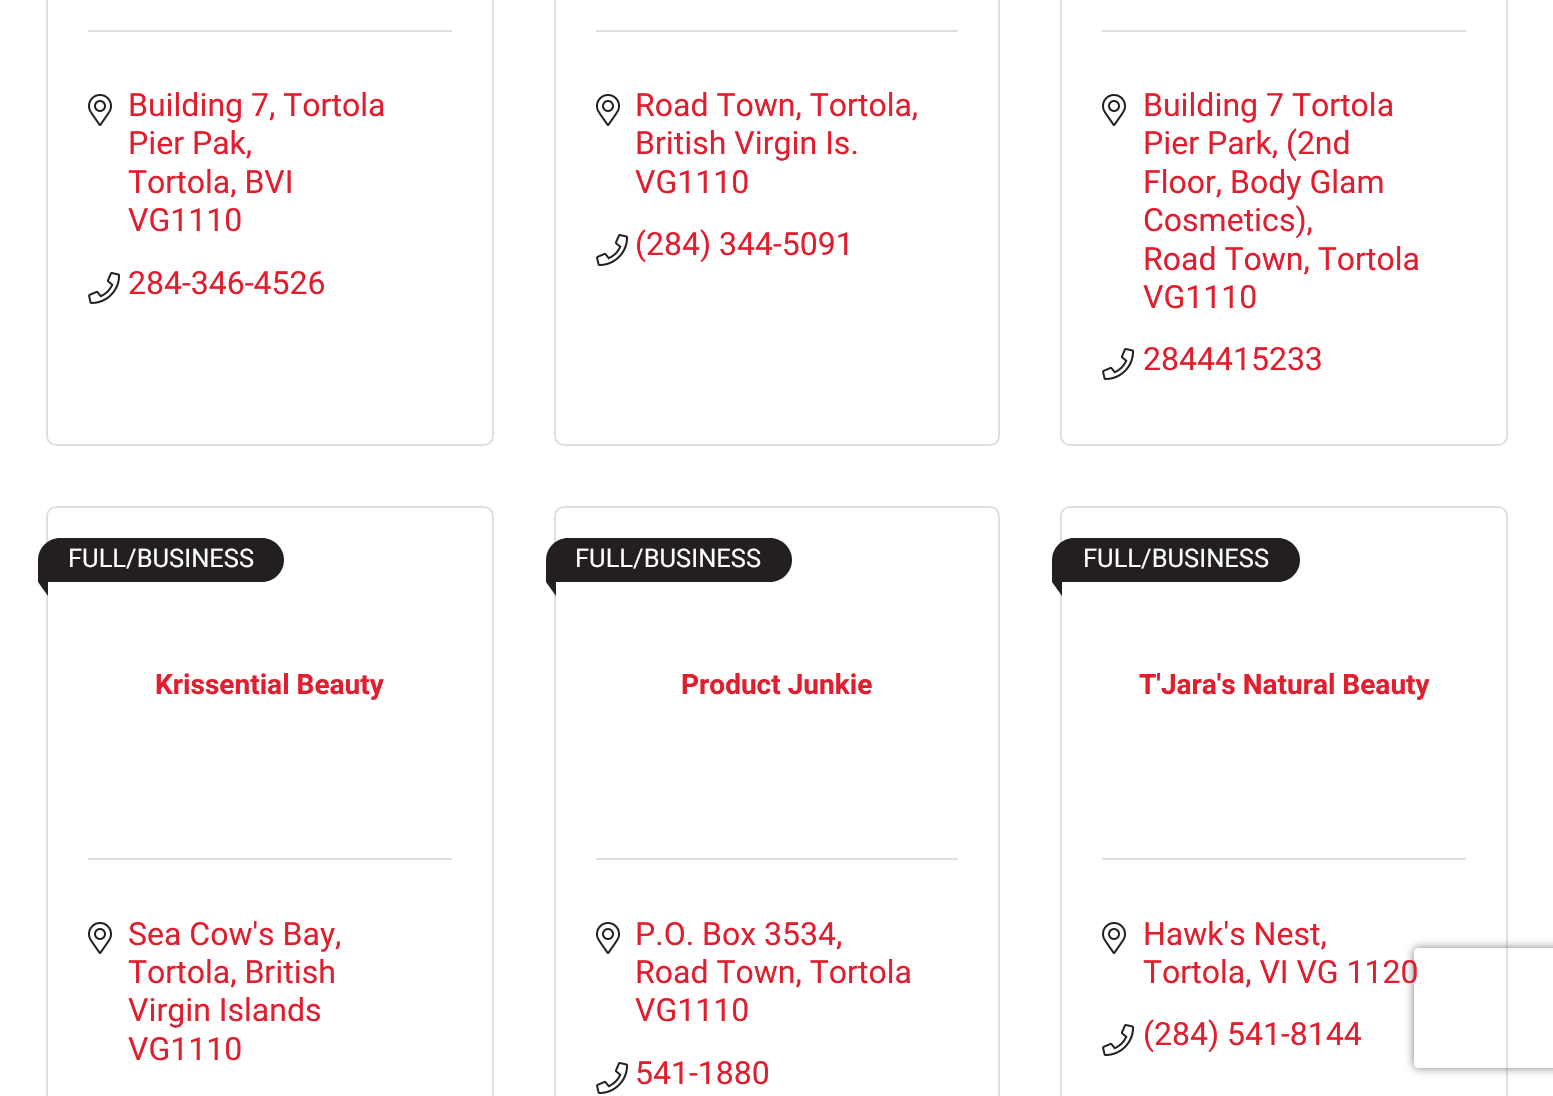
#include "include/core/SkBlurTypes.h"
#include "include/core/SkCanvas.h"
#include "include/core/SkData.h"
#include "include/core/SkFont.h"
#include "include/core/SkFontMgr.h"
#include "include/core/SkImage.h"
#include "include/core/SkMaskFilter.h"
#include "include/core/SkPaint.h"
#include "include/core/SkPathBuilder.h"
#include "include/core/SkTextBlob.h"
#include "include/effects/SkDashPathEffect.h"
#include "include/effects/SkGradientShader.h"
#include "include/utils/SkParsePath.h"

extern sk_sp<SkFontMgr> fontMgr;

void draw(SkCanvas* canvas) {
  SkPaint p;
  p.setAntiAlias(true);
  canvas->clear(SK_ColorWHITE);
  p.setStyle(SkPaint::kStroke_Style);
  p.setStrokeWidth(2);
  p.setColor(SkColorSetRGB(223, 223, 223));
  canvas->drawRoundRect(SkRect::MakeLTRB(47, -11, 493, 445), 9, 9, p);
  p.setStyle(SkPaint::kFill_Style);
  canvas->drawRect(SkRect::MakeLTRB(88, 30, 452, 32), p);
  canvas->drawImageRect(SkImages::DeferredFromEncodedData(SkData::MakeFromFileName("images/1.png")), SkRect::MakeLTRB(88, 94, 112, 126), SkSamplingOptions());
  canvas->drawImageRect(SkImages::DeferredFromEncodedData(SkData::MakeFromFileName("images/2.png")), SkRect::MakeLTRB(88, 272, 121, 304), SkSamplingOptions());
  p.setStyle(SkPaint::kStroke_Style);
  canvas->drawRoundRect(SkRect::MakeLTRB(555, -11, 999, 445), 9, 9, p);
  p.setStyle(SkPaint::kFill_Style);
  canvas->drawRect(SkRect::MakeLTRB(596, 30, 958, 32), p);
  canvas->drawImageRect(SkImages::DeferredFromEncodedData(SkData::MakeFromFileName("images/1.png")), SkRect::MakeLTRB(596, 94, 620, 126), SkSamplingOptions());
  canvas->drawImageRect(SkImages::DeferredFromEncodedData(SkData::MakeFromFileName("images/2.png")), SkRect::MakeLTRB(596, 234, 629, 266), SkSamplingOptions());
  p.setStyle(SkPaint::kStroke_Style);
  canvas->drawRoundRect(SkRect::MakeLTRB(1061, -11, 1507, 445), 9, 9, p);
  p.setStyle(SkPaint::kFill_Style);
  canvas->drawRect(SkRect::MakeLTRB(1102, 30, 1466, 32), p);
  canvas->drawImageRect(SkImages::DeferredFromEncodedData(SkData::MakeFromFileName("images/1.png")), SkRect::MakeLTRB(1102, 94, 1126, 126), SkSamplingOptions());
  canvas->drawImageRect(SkImages::DeferredFromEncodedData(SkData::MakeFromFileName("images/2.png")), SkRect::MakeLTRB(1102, 348, 1135, 380), SkSamplingOptions());
  p.setStyle(SkPaint::kStroke_Style);
  canvas->drawRoundRect(SkRect::MakeLTRB(47, 507, 493, 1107), 9, 9, p);
  p.setStyle(SkPaint::kFill_Style);
  p.setColor(SkColorSetRGB(35, 31, 32));
  canvas->drawPath(SkPathBuilder().moveTo(60, 538).lineTo(262, 538).cubicTo(274, 538, 284, 548, 284, 560).cubicTo(284, 572, 274, 582, 262, 582).lineTo(39, 582).cubicTo(38.5f, 582, 38, 581.5f, 38, 581).lineTo(38, 560).cubicTo(38, 548, 48, 538, 60, 538).close().detach(), p);
  canvas->drawPath(SkPathBuilder().moveTo(48, 568).lineTo(48, 596).lineTo(38, 582).close().detach(), p);
  p.setColor(SkColorSetRGB(223, 223, 223));
  canvas->drawRect(SkRect::MakeLTRB(88, 858, 452, 860), p);
  canvas->drawImageRect(SkImages::DeferredFromEncodedData(SkData::MakeFromFileName("images/1.png")), SkRect::MakeLTRB(88, 922, 112, 954), SkSamplingOptions());
  p.setStyle(SkPaint::kStroke_Style);
  canvas->drawRoundRect(SkRect::MakeLTRB(555, 507, 999, 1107), 9, 9, p);
  p.setStyle(SkPaint::kFill_Style);
  p.setColor(SkColorSetRGB(35, 31, 32));
  canvas->drawPath(SkPathBuilder().moveTo(568, 538).lineTo(770, 538).cubicTo(782, 538, 792, 548, 792, 560).cubicTo(792, 572, 782, 582, 770, 582).lineTo(547, 582).cubicTo(546.5f, 582, 546, 581.5f, 546, 581).lineTo(546, 560).cubicTo(546, 548, 556, 538, 568, 538).close().detach(), p);
  canvas->drawPath(SkPathBuilder().moveTo(556, 568).lineTo(556, 596).lineTo(546, 582).close().detach(), p);
  p.setColor(SkColorSetRGB(223, 223, 223));
  canvas->drawRect(SkRect::MakeLTRB(596, 858, 958, 860), p);
  canvas->drawImageRect(SkImages::DeferredFromEncodedData(SkData::MakeFromFileName("images/1.png")), SkRect::MakeLTRB(596, 922, 620, 954), SkSamplingOptions());
  canvas->drawImageRect(SkImages::DeferredFromEncodedData(SkData::MakeFromFileName("images/2.png")), SkRect::MakeLTRB(596, 1062, 629, 1094), SkSamplingOptions());
  p.setStyle(SkPaint::kStroke_Style);
  canvas->drawRoundRect(SkRect::MakeLTRB(1061, 507, 1507, 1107), 9, 9, p);
  p.setStyle(SkPaint::kFill_Style);
  p.setColor(SkColorSetRGB(35, 31, 32));
  canvas->drawPath(SkPathBuilder().moveTo(1074, 538).lineTo(1278, 538).cubicTo(1290, 538, 1300, 548, 1300, 560).cubicTo(1300, 572, 1290, 582, 1278, 582).lineTo(1053, 582).cubicTo(1052.5f, 582, 1052, 581.5f, 1052, 581).lineTo(1052, 560).cubicTo(1052, 548, 1062, 538, 1074, 538).close().detach(), p);
  canvas->drawPath(SkPathBuilder().moveTo(1062, 568).lineTo(1062, 596).lineTo(1052, 582).close().detach(), p);
  p.setColor(SkColorSetRGB(223, 223, 223));
  canvas->drawRect(SkRect::MakeLTRB(1102, 858, 1466, 860), p);
  canvas->drawImageRect(SkImages::DeferredFromEncodedData(SkData::MakeFromFileName("images/1.png")), SkRect::MakeLTRB(1102, 922, 1126, 954), SkSamplingOptions());
  canvas->drawImageRect(SkImages::DeferredFromEncodedData(SkData::MakeFromFileName("images/2.png")), SkRect::MakeLTRB(1102, 1024, 1135, 1056), SkSamplingOptions());
  canvas->save();
  canvas->clipPath(SkPathBuilder(SkPathFillType::kEvenOdd).moveTo(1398, 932).lineTo(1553, 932).lineTo(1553, 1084).lineTo(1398, 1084).close().moveTo(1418, 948).lineTo(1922, 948).cubicTo(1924, 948, 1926, 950, 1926, 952).lineTo(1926, 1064).cubicTo(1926, 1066, 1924, 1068, 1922, 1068).lineTo(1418, 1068).cubicTo(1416, 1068, 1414, 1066, 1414, 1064).lineTo(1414, 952).cubicTo(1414, 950, 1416, 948, 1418, 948).close().detach(), true);
  p.setColor(SkColorSetRGB(128, 128, 128));
  p.setMaskFilter(SkMaskFilter::MakeBlur(kNormal_SkBlurStyle, 5));
  canvas->drawRoundRect(SkRect::MakeLTRB(1414, 948, 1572, 1068), 4, 4, p);
  p.setMaskFilter(nullptr);
  canvas->restore();
  SkFont font1(fontMgr->matchFamilyStyle("Heebo", SkFontStyle::Normal()), 32);
  font1.setSubpixel(true);
  p.setColor(SkColorSetRGB(225, 30, 46));
  canvas->drawString("Building 7, Tortola", 128, 116, font1, p);
  canvas->drawString("Pier Pak,", 128, 154, font1, p);
  canvas->drawString("Tortola, BVI", 128, 193, font1, p);
  canvas->drawString("VG1110", 128, 231, font1, p);
  canvas->drawString("284-346-4526", 128, 294, font1, p);
  canvas->drawString("Road Town, Tortola,", 635, 116, font1, p);
  canvas->drawString("British Virgin Is.", 635, 154, font1, p);
  canvas->drawString("VG1110", 635, 193, font1, p);
  canvas->drawString("(284) 344-5091", 635, 255, font1, p);
  canvas->drawString("Building 7 Tortola", 1143, 116, font1, p);
  canvas->drawString("Pier Park, (2nd", 1143, 154, font1, p);
  canvas->drawString("Floor, Body Glam", 1143, 193, font1, p);
  canvas->drawString("Cosmetics),", 1143, 231, font1, p);
  canvas->drawString("Road Town, Tortola", 1143, 270, font1, p);
  canvas->drawString("VG1110", 1143, 308, font1, p);
  canvas->drawString("2844415233", 1143, 370, font1, p);
  SkFont font2(fontMgr->matchFamilyStyle("Heebo", SkFontStyle::Normal()), 25.5f);
  font2.setSubpixel(true);
  p.setColor(SK_ColorWHITE);
  canvas->drawString("FULL/BUSINESS", 68, 567, font2, p);
  SkFont font3(fontMgr->matchFamilyStyle("Heebo", SkFontStyle::Bold()), 28);
  font3.setSubpixel(true);
  p.setColor(SkColorSetRGB(225, 30, 46));
  canvas->drawString("Krissential Beauty", 155, 694, font3, p);
  canvas->drawString("Sea Cow's Bay,", 128, 945, font1, p);
  canvas->drawString("Tortola, British", 128, 983, font1, p);
  canvas->drawString("Virgin Islands", 128, 1021, font1, p);
  canvas->drawString("VG1110", 128, 1060, font1, p);
  p.setColor(SK_ColorWHITE);
  canvas->drawString("FULL/BUSINESS", 575, 567, font2, p);
  p.setColor(SkColorSetRGB(225, 30, 46));
  canvas->drawString("Product Junkie", 681, 694, font3, p);
  canvas->drawString("P.O. Box 3534,", 635, 945, font1, p);
  canvas->drawString("Road Town, Tortola", 635, 983, font1, p);
  canvas->drawString("VG1110", 635, 1021, font1, p);
  canvas->drawString("541-1880", 635, 1084, font1, p);
  p.setColor(SK_ColorWHITE);
  canvas->drawString("FULL/BUSINESS", 1083, 567, font2, p);
  p.setColor(SkColorSetRGB(225, 30, 46));
  canvas->drawString("T'Jara's Natural Beauty", 1139, 694, font3, p);
  canvas->drawString("Hawk's Nest,", 1143, 945, font1, p);
  canvas->drawString("Tortola, VI VG 1120", 1143, 983, font1, p);
  canvas->drawString("(284) 541-8144", 1143, 1045, font1, p);
}
